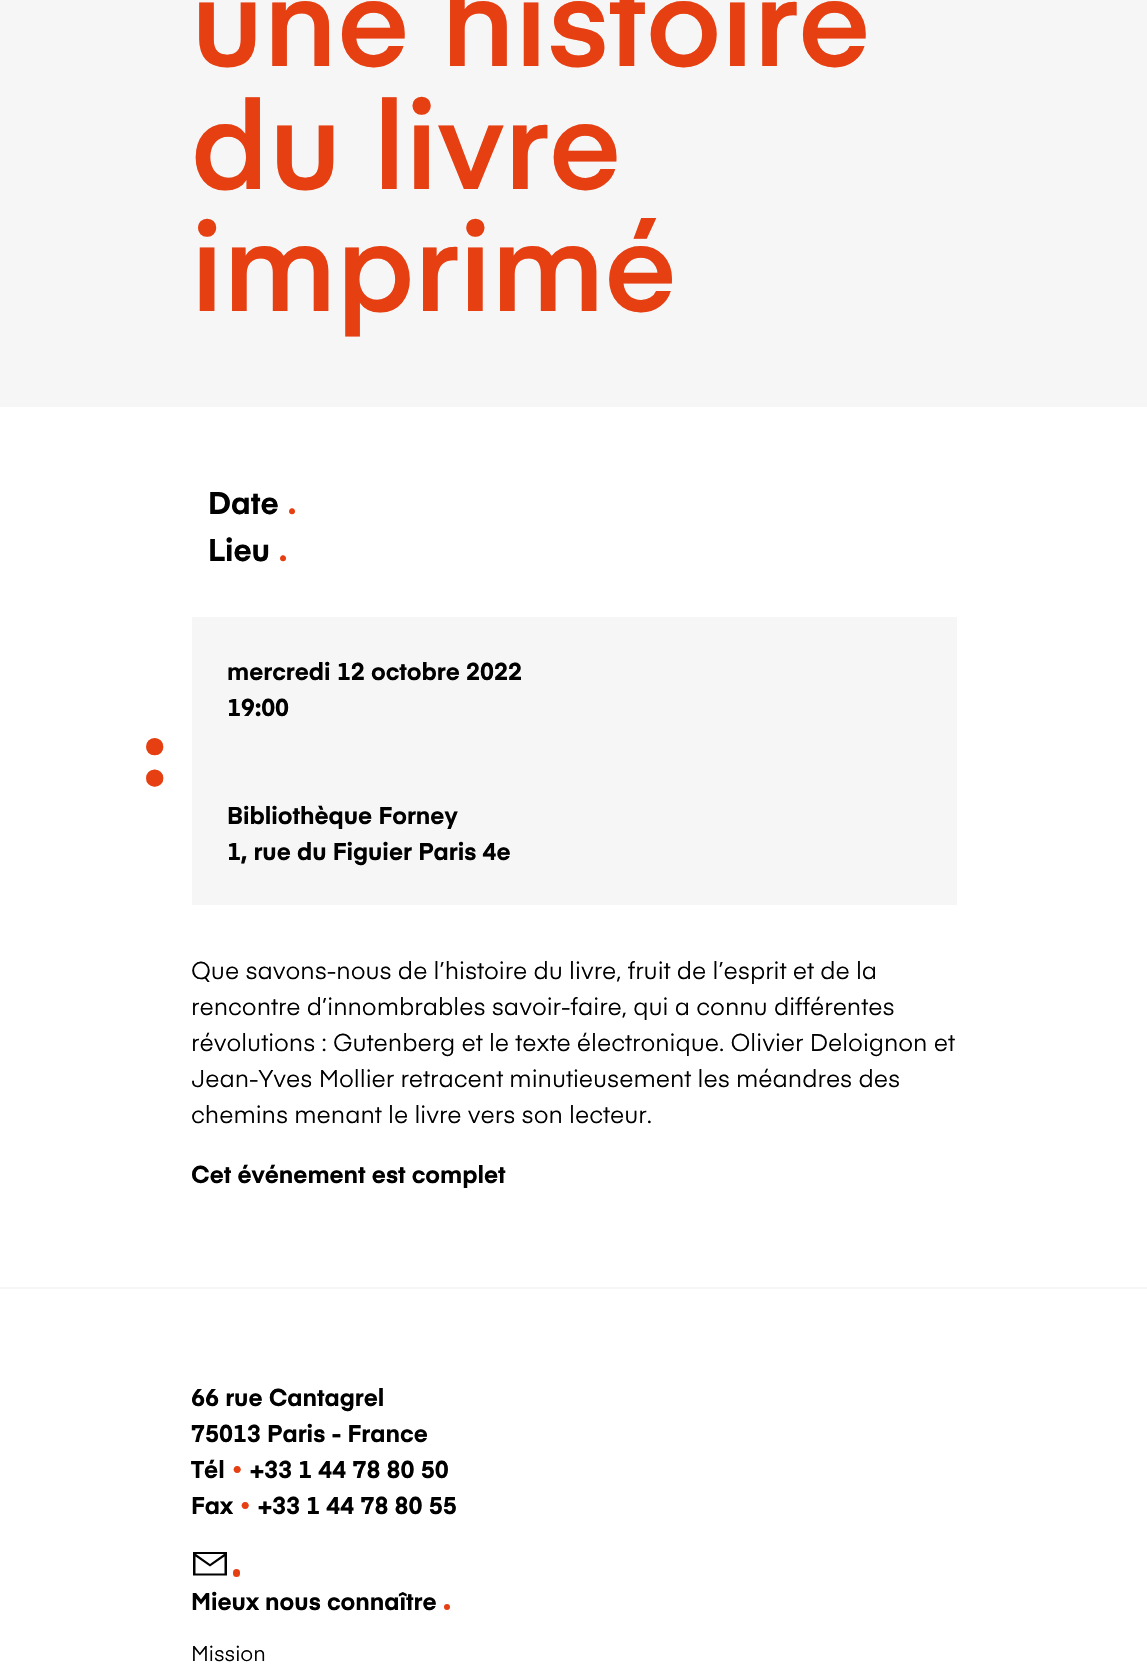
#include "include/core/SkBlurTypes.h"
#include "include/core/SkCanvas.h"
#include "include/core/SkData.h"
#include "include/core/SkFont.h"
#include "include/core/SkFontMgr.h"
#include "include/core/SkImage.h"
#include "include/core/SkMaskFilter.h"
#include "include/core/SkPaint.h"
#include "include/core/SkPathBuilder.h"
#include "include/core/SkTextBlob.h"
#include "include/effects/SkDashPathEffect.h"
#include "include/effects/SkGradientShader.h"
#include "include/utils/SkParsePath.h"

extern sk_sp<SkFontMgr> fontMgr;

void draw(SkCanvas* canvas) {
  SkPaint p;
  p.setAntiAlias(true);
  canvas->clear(SK_ColorWHITE);
  p.setColor(SkColorSetRGB(246, 246, 246));
  canvas->drawRect(SkRect::MakeLTRB(0, 0, 1147, 407), p);
  canvas->drawRect(SkRect::MakeLTRB(192, 617, 957, 905), p);
  canvas->drawRect(SkRect::MakeLTRB(0, 1287, 1147, 1289), p);
  p.setColor(SK_ColorBLACK);
  canvas->drawPath(SkPathBuilder().moveTo(193, 1552).lineTo(193, 1575.5f).lineTo(227, 1575.5f).lineTo(227, 1552).close().moveTo(224, 1554).lineTo(210, 1564).lineTo(196, 1554).close().moveTo(195.5f, 1573.5f).lineTo(195.5f, 1556.5f).lineTo(210, 1566.5f).lineTo(224.5f, 1556.5f).lineTo(224.5f, 1573.5f).close().detach(), p);
  p.setColor(SkColorSetRGB(230, 63, 18));
  canvas->drawRoundRect(SkRect::MakeLTRB(233, 1569, 240, 1577), 3.5f, 3.5f, p);
  canvas->drawCircle(447, 1607, 3, p);
  SkFont font1(fontMgr->matchFamilyStyle("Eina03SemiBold", SkFontStyle(600, SkFontStyle::kNormal_Width, SkFontStyle::kUpright_Slant)), 122.5f);
  font1.setSubpixel(true);
  canvas->drawString("une histoire", 191, 66, font1, p);
  canvas->drawString("du livre", 191, 189, font1, p);
  canvas->drawString("imprimé", 191, 311, font1, p);
  SkFont font2(fontMgr->matchFamilyStyle("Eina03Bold", SkFontStyle::Bold()), 31);
  font2.setSubpixel(true);
  p.setColor(SK_ColorBLACK);
  canvas->drawString("Date", 208, 514, font2, p);
  p.setColor(SkColorSetRGB(230, 63, 18));
  canvas->drawString(".", 288, 514, font2, p);
  p.setColor(SK_ColorBLACK);
  canvas->drawString("Lieu", 208, 561, font2, p);
  p.setColor(SkColorSetRGB(230, 63, 18));
  canvas->drawString(".", 279, 561, font2, p);
  SkFont font3(fontMgr->matchFamilyStyle("Eina03Bold", SkFontStyle::Bold()), 24);
  font3.setSubpixel(true);
  p.setColor(SK_ColorBLACK);
  canvas->drawString("mercredi 12 octobre 2022", 227, 680, font3, p);
  canvas->drawString("19:00", 227, 716, font3, p);
  SkFont font4(fontMgr->matchFamilyStyle("Eina03Bold", SkFontStyle::Bold()), 90);
  font4.setSubpixel(true);
  p.setColor(SkColorSetRGB(230, 63, 18));
  canvas->drawString(":", 143, 786, font4, p);
  p.setColor(SK_ColorBLACK);
  canvas->drawString("Bibliothèque Forney", 227, 824, font3, p);
  canvas->drawString("1, rue du Figuier Paris 4e", 227, 860, font3, p);
  SkFont font5(fontMgr->matchFamilyStyle("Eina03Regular", SkFontStyle::Normal()), 24);
  font5.setSubpixel(true);
  canvas->drawString("Que savons-nous de l’histoire du livre, fruit de l’esprit et de la", 191, 979, font5, p);
  canvas->drawString("rencontre d’innombrables savoir-faire, qui a connu différentes", 191, 1015, font5, p);
  canvas->drawString("révolutions : Gutenberg et le texte électronique. Olivier Deloignon et", 191, 1051, font5, p);
  canvas->drawString("Jean-Yves Mollier retracent minutieusement les méandres des", 191, 1087, font5, p);
  canvas->drawString("chemins menant le livre vers son lecteur.", 191, 1123, font5, p);
  canvas->drawString("Cet événement est complet", 191, 1183, font3, p);
  canvas->drawString("66 rue Cantagrel", 191, 1406, font3, p);
  canvas->drawString("75013 Paris - France", 191, 1442, font3, p);
  canvas->drawString("Tél", 191, 1478, font3, p);
  p.setColor(SkColorSetRGB(230, 63, 18));
  canvas->drawString("•", 231, 1478, font3, p);
  p.setColor(SK_ColorBLACK);
  canvas->drawString("+33 1 44 78 80 50", 250, 1478, font3, p);
  canvas->drawString("Fax", 191, 1514, font3, p);
  p.setColor(SkColorSetRGB(230, 63, 18));
  canvas->drawString("•", 239, 1514, font3, p);
  p.setColor(SK_ColorBLACK);
  canvas->drawString("+33 1 44 78 80 55", 258, 1514, font3, p);
  canvas->drawString("Mieux nous connaître", 191, 1610, font3, p);
  SkFont font6(fontMgr->matchFamilyStyle("Eina03Regular", SkFontStyle::Normal()), 21);
  font6.setSubpixel(true);
  canvas->drawString("Mission", 191, 1661, font6, p);
}
